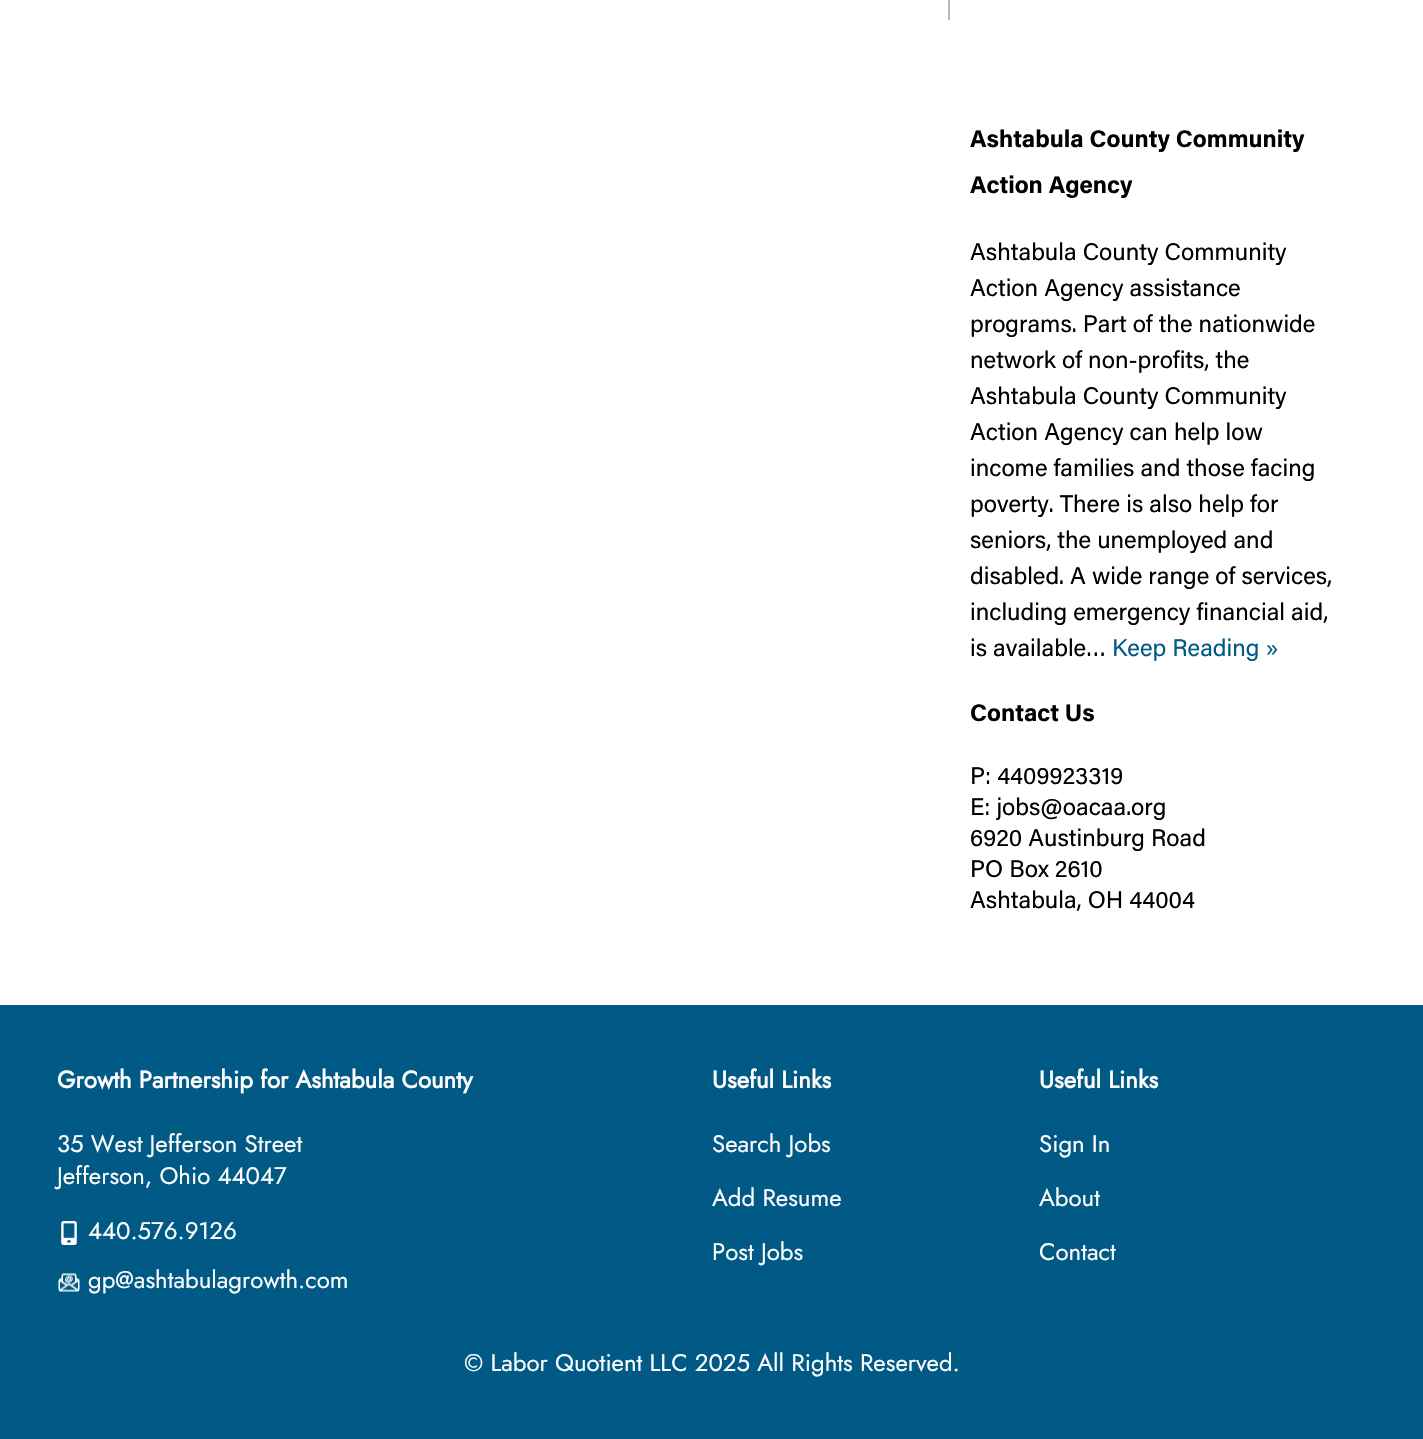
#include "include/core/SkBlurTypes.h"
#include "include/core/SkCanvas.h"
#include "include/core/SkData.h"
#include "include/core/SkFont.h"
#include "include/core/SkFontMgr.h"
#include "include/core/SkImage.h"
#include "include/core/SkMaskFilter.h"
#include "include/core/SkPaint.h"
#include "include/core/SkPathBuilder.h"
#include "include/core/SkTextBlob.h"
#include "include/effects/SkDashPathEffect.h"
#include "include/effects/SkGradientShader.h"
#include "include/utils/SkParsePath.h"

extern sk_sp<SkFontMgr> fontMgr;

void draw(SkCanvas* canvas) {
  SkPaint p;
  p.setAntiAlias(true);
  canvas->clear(SK_ColorWHITE);
  p.setColor(SkColorSetRGB(186, 186, 186));
  canvas->drawRect(SkRect::MakeLTRB(948, 0, 950, 20), p);
  p.setColor(SkColorSetRGB(1, 89, 133));
  canvas->drawRect(SkRect::MakeLTRB(0, 1005, 1423, 1439), p);
  canvas->drawImageRect(SkImages::DeferredFromEncodedData(SkData::MakeFromFileName("images/1.png")), SkRect::MakeLTRB(61, 1221, 77, 1245), SkSamplingOptions());
  canvas->drawImageRect(SkImages::DeferredFromEncodedData(SkData::MakeFromFileName("images/2.png")), SkRect::MakeLTRB(58, 1273, 80, 1292), SkSamplingOptions());
  SkFont font1(fontMgr->matchFamilyStyle("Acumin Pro", SkFontStyle::Bold()), 24);
  font1.setSubpixel(true);
  p.setColor(SK_ColorBLACK);
  canvas->drawString("Ashtabula County Community", 970, 147, font1, p);
  canvas->drawString("Action Agency", 970, 193, font1, p);
  SkFont font2(fontMgr->matchFamilyStyle("Acumin Pro", SkFontStyle::Normal()), 24);
  font2.setSubpixel(true);
  canvas->drawString("Ashtabula County Community", 970, 260, font2, p);
  canvas->drawString("Action Agency assistance", 970, 296, font2, p);
  canvas->drawString("programs. Part of the nationwide", 970, 332, font2, p);
  canvas->drawString("network of non-profits, the", 970, 368, font2, p);
  canvas->drawString("Ashtabula County Community", 970, 404, font2, p);
  canvas->drawString("Action Agency can help low", 970, 440, font2, p);
  canvas->drawString("income families and those facing", 970, 476, font2, p);
  canvas->drawString("poverty. There is also help for", 970, 512, font2, p);
  canvas->drawString("seniors, the unemployed and", 970, 548, font2, p);
  canvas->drawString("disabled. A wide range of services,", 970, 584, font2, p);
  canvas->drawString("including emergency financial aid,", 970, 620, font2, p);
  canvas->drawString("is available…", 970, 656, font2, p);
  p.setColor(SkColorSetRGB(1, 89, 133));
  canvas->drawString("Keep Reading »", 1112, 656, font2, p);
  p.setColor(SK_ColorBLACK);
  canvas->drawString("Contact Us", 970, 721, font1, p);
  canvas->drawString("P: 4409923319", 970, 784, font2, p);
  canvas->drawString("E: jobs@oacaa.org", 970, 815, font2, p);
  canvas->drawString("6920 Austinburg Road", 970, 846, font2, p);
  canvas->drawString("PO Box 2610", 970, 877, font2, p);
  canvas->drawString("Ashtabula, OH 44004", 970, 908, font2, p);
  SkFont font3(fontMgr->matchFamilyStyle("Jost", SkFontStyle::Bold()), 24);
  font3.setSubpixel(true);
  p.setColor(SK_ColorWHITE);
  canvas->drawString("Growth Partnership for Ashtabula County", 57, 1088, font3, p);
  SkFont font4(fontMgr->matchFamilyStyle("Jost", SkFontStyle::Normal()), 24);
  font4.setSubpixel(true);
  canvas->drawString("35 West Jefferson Street", 57, 1152, font4, p);
  canvas->drawString("Jefferson, Ohio 44047", 57, 1184, font4, p);
  canvas->drawString("440.576.9126", 88, 1239, font4, p);
  canvas->drawString("gp@ashtabulagrowth.com", 88, 1288, font4, p);
  canvas->drawString("Useful Links", 712, 1088, font3, p);
  canvas->drawString("Search Jobs", 712, 1152, font4, p);
  canvas->drawString("Add Resume", 712, 1206, font4, p);
  canvas->drawString("Post Jobs", 712, 1260, font4, p);
  canvas->drawString("Useful Links", 1039, 1088, font3, p);
  canvas->drawString("Sign In", 1039, 1152, font4, p);
  canvas->drawString("About", 1039, 1206, font4, p);
  canvas->drawString("Contact", 1039, 1260, font4, p);
  canvas->drawString("© Labor Quotient LLC 2025 All Rights Reserved.", 464, 1371, font4, p);
}
